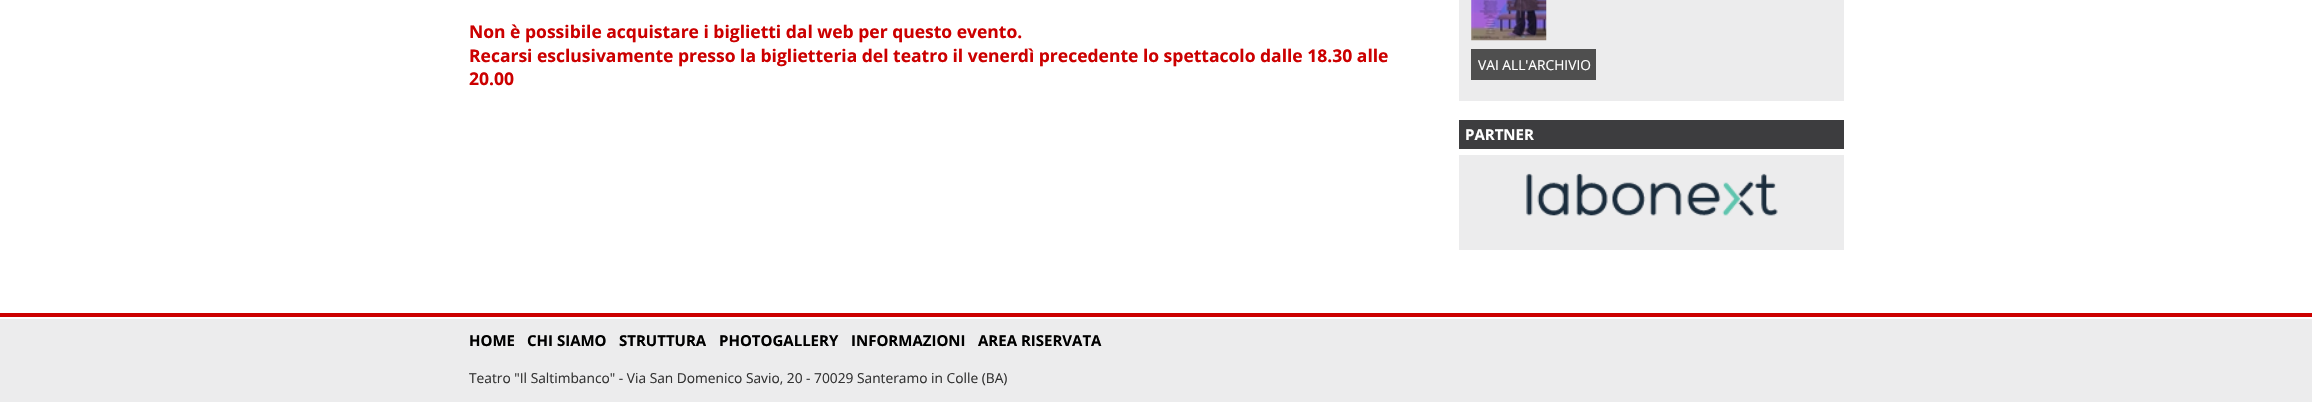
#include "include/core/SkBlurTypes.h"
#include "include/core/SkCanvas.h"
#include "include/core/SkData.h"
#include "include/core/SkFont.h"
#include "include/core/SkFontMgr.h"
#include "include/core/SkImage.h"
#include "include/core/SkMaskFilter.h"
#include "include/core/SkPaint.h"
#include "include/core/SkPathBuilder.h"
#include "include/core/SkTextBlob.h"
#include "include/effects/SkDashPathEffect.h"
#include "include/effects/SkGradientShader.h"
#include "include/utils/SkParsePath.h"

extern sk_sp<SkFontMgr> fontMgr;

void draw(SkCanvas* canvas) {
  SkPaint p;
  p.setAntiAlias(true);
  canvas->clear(SK_ColorWHITE);
  p.setColor(SkColorSetRGB(236, 236, 237));
  canvas->drawRect(SkRect::MakeLTRB(1459, 0, 1844, 101), p);
  canvas->drawImageRect(SkImages::DeferredFromEncodedData(SkData::MakeFromFileName("images/1.png")), SkRect::MakeLTRB(1471, 0, 1547, 41), SkSamplingOptions());
  p.setColor(SkColorSetRGB(79, 79, 79));
  canvas->drawRect(SkRect::MakeLTRB(1471, 49, 1596, 80), p);
  p.setColor(SkColorSetRGB(61, 61, 63));
  canvas->drawRect(SkRect::MakeLTRB(1459, 120, 1844, 149), p);
  p.setColor(SkColorSetRGB(236, 236, 237));
  canvas->drawRect(SkRect::MakeLTRB(1459, 155, 1844, 250), p);
  canvas->drawImageRect(SkImages::DeferredFromEncodedData(SkData::MakeFromFileName("images/2.png")), SkRect::MakeLTRB(1526, 173, 1778, 217), SkSamplingOptions());
  p.setColor(SkColorSetRGB(204, 0, 0));
  canvas->drawRect(SkRect::MakeLTRB(0, 313, 2312, 317), p);
  p.setColor(SkColorSetRGB(236, 236, 237));
  canvas->drawRect(SkRect::MakeLTRB(0, 319, 2312, 402), p);
  SkFont font1(fontMgr->matchFamilyStyle("Open Sans", SkFontStyle::Bold()), 17.5f);
  font1.setSubpixel(true);
  p.setColor(SkColorSetRGB(204, 0, 0));
  canvas->drawString("Non è possibile acquistare i biglietti dal web per questo evento.", 469, 38, font1, p);
  canvas->drawString("Recarsi esclusivamente presso la biglietteria del teatro il venerdì precedente lo spettacolo dalle 18.30 alle", 469, 62, font1, p);
  canvas->drawString("20.00", 469, 85, font1, p);
  SkFont font2(fontMgr->matchFamilyStyle("Open Sans", SkFontStyle::Normal()), 13.75f);
  font2.setSubpixel(true);
  p.setColor(SK_ColorWHITE);
  canvas->drawString("VAI ALL'ARCHIVIO", 1478, 70, font2, p);
  SkFont font3(fontMgr->matchFamilyStyle("Open Sans", SkFontStyle::Bold()), 15);
  font3.setSubpixel(true);
  canvas->drawString("PARTNER", 1465, 140, font3, p);
  p.setColor(SK_ColorBLACK);
  canvas->drawString("HOME", 469, 346, font3, p);
  canvas->drawString("CHI SIAMO", 527, 346, font3, p);
  canvas->drawString("STRUTTURA", 619, 346, font3, p);
  canvas->drawString("PHOTOGALLERY", 719, 346, font3, p);
  canvas->drawString("INFORMAZIONI", 851, 346, font3, p);
  canvas->drawString("AREA RISERVATA", 978, 346, font3, p);
  p.setColor(SkColorSetRGB(51, 51, 51));
  canvas->drawString("Teatro \"Il Saltimbanco\" - Via San Domenico Savio, 20 - 70029 Santeramo in Colle (BA)", 469, 383, font2, p);
}
